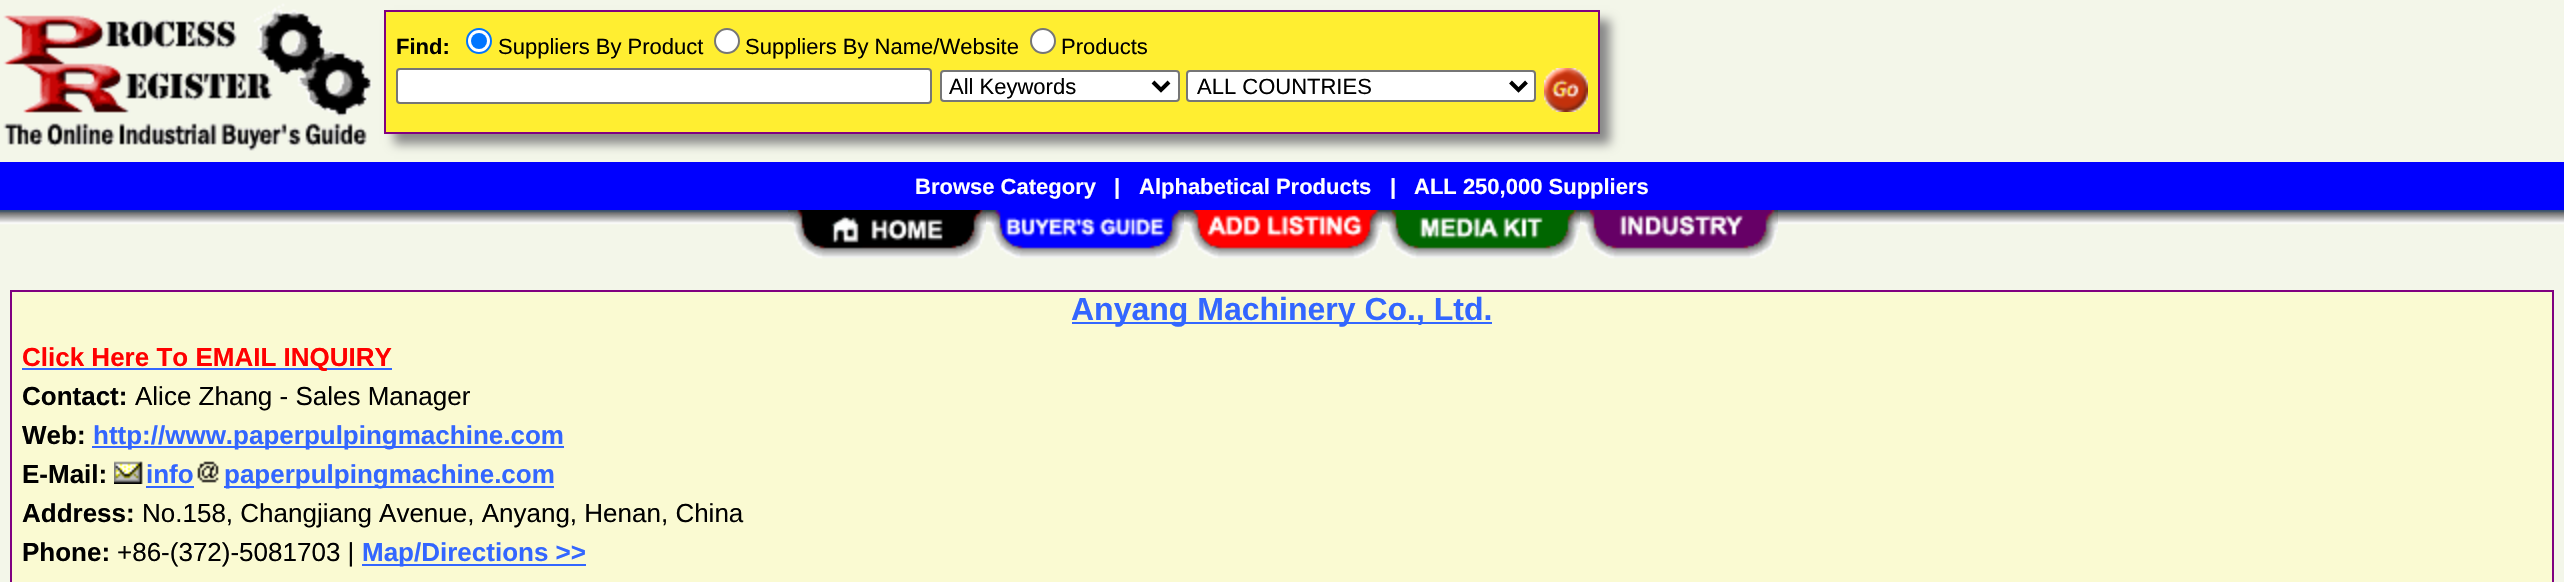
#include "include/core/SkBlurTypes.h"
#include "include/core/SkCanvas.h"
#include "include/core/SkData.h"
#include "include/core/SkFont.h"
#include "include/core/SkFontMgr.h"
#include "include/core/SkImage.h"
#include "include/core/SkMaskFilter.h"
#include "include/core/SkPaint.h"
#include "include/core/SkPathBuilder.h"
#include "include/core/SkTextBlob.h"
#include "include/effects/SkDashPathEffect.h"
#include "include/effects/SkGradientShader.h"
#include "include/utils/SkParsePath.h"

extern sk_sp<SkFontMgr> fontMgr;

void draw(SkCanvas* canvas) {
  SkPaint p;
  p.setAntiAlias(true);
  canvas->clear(SkColorSetRGB(243, 246, 233));
  canvas->drawImageRect(SkImages::DeferredFromEncodedData(SkData::MakeFromFileName("images/1.png")), SkRect::MakeLTRB(3, 3, 373, 151), SkSamplingOptions());
  p.setColor(SkColorSetRGB(136, 136, 136));
  p.setMaskFilter(SkMaskFilter::MakeBlur(kNormal_SkBlurStyle, 5));
  canvas->drawRect(SkRect::MakeLTRB(394, 20, 1610, 144), p);
  p.setMaskFilter(nullptr);
  p.setColor(SkColorSetRGB(255, 238, 49));
  canvas->drawRect(SkRect::MakeLTRB(385, 11, 1599, 133), p);
  p.setStyle(SkPaint::kStroke_Style);
  p.setStrokeWidth(2);
  p.setColor(SkColorSetRGB(128, 0, 128));
  canvas->drawRect(SkRect::MakeLTRB(385, 11, 1599, 133), p);
  p.setStyle(SkPaint::kFill_Style);
  p.setColor(SK_ColorWHITE);
  canvas->drawCircle(479, 41, 12, p);
  p.setStyle(SkPaint::kStroke_Style);
  p.setColor(SkColorSetRGB(0, 117, 255));
  canvas->drawCircle(479, 41, 12, p);
  p.setStyle(SkPaint::kFill_Style);
  canvas->drawCircle(479, 41, 8, p);
  p.setColor(SK_ColorWHITE);
  canvas->drawCircle(727, 41, 12, p);
  p.setStyle(SkPaint::kStroke_Style);
  p.setColor(SkColorSetRGB(118, 118, 118));
  canvas->drawCircle(727, 41, 12, p);
  p.setStyle(SkPaint::kFill_Style);
  p.setColor(SK_ColorWHITE);
  canvas->drawCircle(1043, 41, 12, p);
  p.setStyle(SkPaint::kStroke_Style);
  p.setColor(SkColorSetRGB(118, 118, 118));
  canvas->drawCircle(1043, 41, 12, p);
  p.setStyle(SkPaint::kFill_Style);
  p.setColor(SK_ColorWHITE);
  canvas->drawRoundRect(SkRect::MakeLTRB(397, 69, 931, 103), 3, 3, p);
  p.setStyle(SkPaint::kStroke_Style);
  p.setColor(SkColorSetRGB(118, 118, 118));
  canvas->drawRoundRect(SkRect::MakeLTRB(397, 69, 931, 103), 3, 3, p);
  p.setStyle(SkPaint::kFill_Style);
  p.setColor(SK_ColorWHITE);
  canvas->drawRoundRect(SkRect::MakeLTRB(941, 71, 1179, 101), 3, 3, p);
  p.setStyle(SkPaint::kStroke_Style);
  p.setColor(SkColorSetRGB(118, 118, 118));
  canvas->drawRoundRect(SkRect::MakeLTRB(941, 71, 1179, 101), 3, 3, p);
  p.setStrokeWidth(4);
  p.setColor(SK_ColorBLACK);
  canvas->drawPath(SkPathBuilder().moveTo(1153, 82).lineTo(1161, 90).lineTo(1169, 82).detach(), p);
  p.setStyle(SkPaint::kFill_Style);
  p.setColor(SK_ColorWHITE);
  canvas->drawRoundRect(SkRect::MakeLTRB(1187, 71, 1535, 101), 3, 3, p);
  p.setStyle(SkPaint::kStroke_Style);
  p.setStrokeWidth(2);
  p.setColor(SkColorSetRGB(118, 118, 118));
  canvas->drawRoundRect(SkRect::MakeLTRB(1187, 71, 1535, 101), 3, 3, p);
  p.setStrokeWidth(4);
  p.setColor(SK_ColorBLACK);
  canvas->drawPath(SkPathBuilder().moveTo(1510.5f, 82).lineTo(1518.5f, 90).lineTo(1526.5f, 82).detach(), p);
  canvas->drawImageRect(SkImages::DeferredFromEncodedData(SkData::MakeFromFileName("images/2.png")), SkRect::MakeLTRB(1544, 68, 1588, 112), SkSamplingOptions());
  p.setStyle(SkPaint::kFill_Style);
  p.setColor(SkColorSetRGB(0, 0, 255));
  canvas->drawRect(SkRect::MakeLTRB(0, 162, 2564, 210), p);
  canvas->drawImageRect(SkImages::DeferredFromEncodedData(SkData::MakeFromFileName("images/3.png")), SkRect::MakeLTRB(0, 210, 2564, 225), SkSamplingOptions());
  canvas->drawImageRect(SkImages::DeferredFromEncodedData(SkData::MakeFromFileName("images/4.png")), SkRect::MakeLTRB(788, 210, 986, 259), SkSamplingOptions());
  canvas->drawImageRect(SkImages::DeferredFromEncodedData(SkData::MakeFromFileName("images/5.png")), SkRect::MakeLTRB(986, 210, 1184, 259), SkSamplingOptions());
  canvas->drawImageRect(SkImages::DeferredFromEncodedData(SkData::MakeFromFileName("images/6.png")), SkRect::MakeLTRB(1184, 210, 1382, 259), SkSamplingOptions());
  canvas->drawImageRect(SkImages::DeferredFromEncodedData(SkData::MakeFromFileName("images/7.png")), SkRect::MakeLTRB(1382, 210, 1580, 259), SkSamplingOptions());
  canvas->drawImageRect(SkImages::DeferredFromEncodedData(SkData::MakeFromFileName("images/8.png")), SkRect::MakeLTRB(1580, 210, 1778, 259), SkSamplingOptions());
  p.setColor(SkColorSetRGB(250, 250, 210));
  canvas->drawRect(SkRect::MakeLTRB(11, 291, 2553, 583), p);
  p.setStyle(SkPaint::kStroke_Style);
  p.setStrokeWidth(2);
  p.setColor(SkColorSetRGB(128, 0, 128));
  canvas->drawRect(SkRect::MakeLTRB(11, 291, 2553, 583), p);
  p.setStyle(SkPaint::kFill_Style);
  p.setColor(SkColorSetRGB(51, 102, 255));
  canvas->drawRect(SkRect::MakeLTRB(1072, 322, 1492, 324), p);
  canvas->drawRect(SkRect::MakeLTRB(22, 368, 392, 370), p);
  canvas->drawRect(SkRect::MakeLTRB(92, 446, 564, 448), p);
  canvas->drawImageRect(SkImages::DeferredFromEncodedData(SkData::MakeFromFileName("images/9.png")), SkRect::MakeLTRB(114, 461, 143, 484), SkSamplingOptions());
  canvas->drawRect(SkRect::MakeLTRB(146, 486, 194, 488), p);
  canvas->drawImageRect(SkImages::DeferredFromEncodedData(SkData::MakeFromFileName("images/10.png")), SkRect::MakeLTRB(197, 461, 219, 483), SkSamplingOptions());
  canvas->drawRect(SkRect::MakeLTRB(224, 486, 554, 488), p);
  canvas->drawRect(SkRect::MakeLTRB(362, 564, 586, 566), p);
  SkFont font1(fontMgr->matchFamilyStyle("Liberation Sans", SkFontStyle::Bold()), 22);
  font1.setSubpixel(true);
  p.setColor(SK_ColorBLACK);
  canvas->drawString("Find:", 396, 54, font1, p);
  SkFont font2(fontMgr->matchFamilyStyle("Liberation Sans", SkFontStyle::Normal()), 22);
  font2.setSubpixel(true);
  canvas->drawString("Suppliers By Product", 498, 54, font2, p);
  canvas->drawString("Suppliers By Name/Website", 745, 54, font2, p);
  canvas->drawString("Products", 1061, 54, font2, p);
  canvas->drawString("All Keywords", 949, 94, font2, p);
  canvas->drawString("ALL COUNTRIES", 1197, 94, font2, p);
  p.setColor(SK_ColorWHITE);
  canvas->drawString("Browse Category", 915, 194, font1, p);
  canvas->drawString("|", 1114, 194, font1, p);
  canvas->drawString("Alphabetical Products", 1139, 194, font1, p);
  canvas->drawString("|", 1390, 194, font1, p);
  canvas->drawString("ALL 250,000 Suppliers", 1414, 194, font1, p);
  SkFont font3(fontMgr->matchFamilyStyle("Liberation Sans", SkFontStyle::Bold()), 32);
  font3.setSubpixel(true);
  p.setColor(SkColorSetRGB(51, 102, 255));
  canvas->drawString("Anyang Machinery Co., Ltd.", 1071, 320, font3, p);
  SkFont font4(fontMgr->matchFamilyStyle("Liberation Sans", SkFontStyle::Bold()), 26);
  font4.setSubpixel(true);
  p.setColor(SkColorSetRGB(255, 0, 0));
  canvas->drawString("Click Here To EMAIL INQUIRY", 22, 366, font4, p);
  p.setColor(SK_ColorBLACK);
  canvas->drawString("Contact:", 22, 405, font4, p);
  SkFont font5(fontMgr->matchFamilyStyle("Liberation Sans", SkFontStyle::Normal()), 26);
  font5.setSubpixel(true);
  canvas->drawString("Alice Zhang - Sales Manager", 135, 405, font5, p);
  canvas->drawString("Web:", 22, 444, font4, p);
  p.setColor(SkColorSetRGB(51, 102, 255));
  canvas->drawString("http://www.paperpulpingmachine.com", 93, 444, font4, p);
  p.setColor(SK_ColorBLACK);
  canvas->drawString("E-Mail:", 22, 483, font4, p);
  p.setColor(SkColorSetRGB(51, 102, 255));
  canvas->drawString("info", 146, 483, font4, p);
  canvas->drawString("paperpulpingmachine.com", 224, 483, font4, p);
  p.setColor(SK_ColorBLACK);
  canvas->drawString("Address:", 22, 522, font4, p);
  canvas->drawString("No.158, Changjiang Avenue, Anyang, Henan, China", 142, 522, font5, p);
  canvas->drawString("Phone:", 22, 561, font4, p);
  canvas->drawString("+86-(372)-5081703 |", 117, 561, font5, p);
  p.setColor(SkColorSetRGB(51, 102, 255));
  canvas->drawString("Map/Directions >>", 362, 561, font4, p);
}
